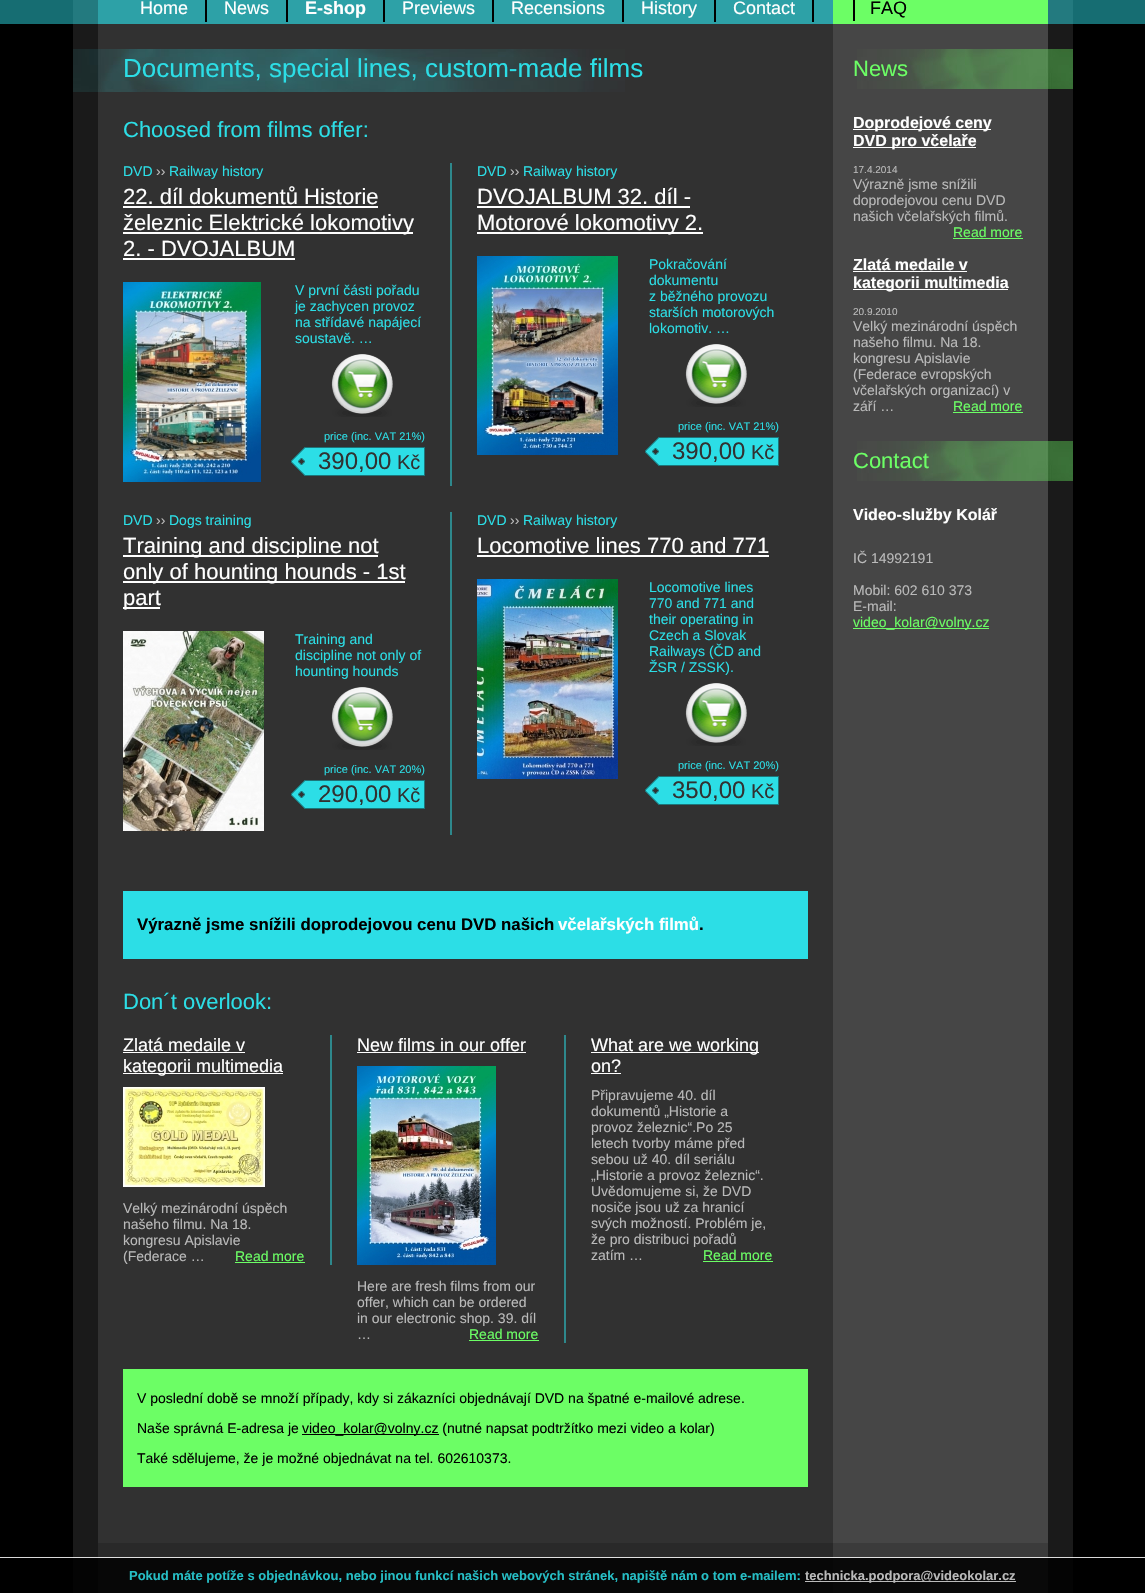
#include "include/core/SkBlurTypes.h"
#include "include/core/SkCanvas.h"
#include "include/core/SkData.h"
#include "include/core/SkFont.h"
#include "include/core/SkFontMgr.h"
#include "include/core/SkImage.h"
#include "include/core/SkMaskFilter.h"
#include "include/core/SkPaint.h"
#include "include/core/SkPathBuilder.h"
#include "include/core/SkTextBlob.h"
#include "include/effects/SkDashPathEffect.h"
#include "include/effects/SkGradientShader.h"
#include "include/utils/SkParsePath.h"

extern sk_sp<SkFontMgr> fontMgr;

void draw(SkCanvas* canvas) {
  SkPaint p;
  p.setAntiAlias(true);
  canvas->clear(SK_ColorBLACK);
  p.setColor(SkColorSetRGB(22, 109, 114));
  canvas->drawRect(SkRect::MakeLTRB(0, 0, 1145, 24), p);
  canvas->drawImageRect(SkImages::DeferredFromEncodedData(SkData::MakeFromFileName("images/1.png")), SkRect::MakeLTRB(73, 24, 1073, 1593), SkSamplingOptions());
  p.setColor(SkColorSetRGB(35, 122, 127));
  canvas->drawRect(SkRect::MakeLTRB(73, 0, 1073, 24), p);
  p.setColor(SkColorSetRGB(45, 161, 167));
  canvas->drawRect(SkRect::MakeLTRB(98, 0, 833, 24), p);
  p.setColor(SK_ColorBLACK);
  canvas->drawRect(SkRect::MakeLTRB(205, 0, 207, 22), p);
  canvas->drawRect(SkRect::MakeLTRB(286, 0, 288, 22), p);
  canvas->drawRect(SkRect::MakeLTRB(383, 0, 385, 22), p);
  canvas->drawRect(SkRect::MakeLTRB(492, 0, 494, 22), p);
  canvas->drawRect(SkRect::MakeLTRB(622, 0, 624, 22), p);
  canvas->drawRect(SkRect::MakeLTRB(714, 0, 716, 22), p);
  canvas->drawRect(SkRect::MakeLTRB(812, 0, 814, 22), p);
  p.setColor(SkColorSetRGB(108, 254, 101));
  canvas->drawRect(SkRect::MakeLTRB(833, 0, 1048, 24), p);
  p.setColor(SK_ColorBLACK);
  canvas->drawRect(SkRect::MakeLTRB(853, 0, 855, 21), p);
  canvas->drawImageRect(SkImages::DeferredFromEncodedData(SkData::MakeFromFileName("images/2.png")), SkRect::MakeLTRB(73, 49, 625, 92), SkSamplingOptions());
  p.setColor(SkColorSetRGB(46, 136, 140));
  canvas->drawRect(SkRect::MakeLTRB(450, 163, 452, 486), p);
  p.setColor(SK_ColorWHITE);
  canvas->drawRect(SkRect::MakeLTRB(123, 206, 378, 208), p);
  canvas->drawRect(SkRect::MakeLTRB(123, 232, 413, 234), p);
  canvas->drawRect(SkRect::MakeLTRB(123, 258, 295, 260), p);
  canvas->drawImageRect(SkImages::DeferredFromEncodedData(SkData::MakeFromFileName("images/3.png")), SkRect::MakeLTRB(123, 282, 261, 482), SkSamplingOptions());
  canvas->drawImageRect(SkImages::DeferredFromEncodedData(SkData::MakeFromFileName("images/4.png")), SkRect::MakeLTRB(331, 354, 393, 417), SkSamplingOptions());
  canvas->drawImageRect(SkImages::DeferredFromEncodedData(SkData::MakeFromFileName("images/5.png")), SkRect::MakeLTRB(291, 447, 424, 476), SkSamplingOptions());
  p.setColor(SkColorSetRGB(29, 117, 121));
  canvas->drawRect(SkRect::MakeLTRB(424, 447, 425, 476), p);
  p.setColor(SK_ColorWHITE);
  canvas->drawRect(SkRect::MakeLTRB(477, 206, 690, 208), p);
  canvas->drawRect(SkRect::MakeLTRB(477, 232, 703, 234), p);
  canvas->drawImageRect(SkImages::DeferredFromEncodedData(SkData::MakeFromFileName("images/6.png")), SkRect::MakeLTRB(477, 256, 618, 455), SkSamplingOptions());
  canvas->drawImageRect(SkImages::DeferredFromEncodedData(SkData::MakeFromFileName("images/4.png")), SkRect::MakeLTRB(685, 344, 747, 407), SkSamplingOptions());
  canvas->drawImageRect(SkImages::DeferredFromEncodedData(SkData::MakeFromFileName("images/5.png")), SkRect::MakeLTRB(645, 437, 778, 466), SkSamplingOptions());
  p.setColor(SkColorSetRGB(29, 117, 121));
  canvas->drawRect(SkRect::MakeLTRB(778, 437, 779, 466), p);
  p.setColor(SkColorSetRGB(46, 136, 140));
  canvas->drawRect(SkRect::MakeLTRB(450, 512, 452, 835), p);
  p.setColor(SK_ColorWHITE);
  canvas->drawRect(SkRect::MakeLTRB(123, 555, 378, 557), p);
  canvas->drawRect(SkRect::MakeLTRB(123, 581, 405, 583), p);
  canvas->drawRect(SkRect::MakeLTRB(123, 607, 160, 609), p);
  canvas->drawImageRect(SkImages::DeferredFromEncodedData(SkData::MakeFromFileName("images/7.png")), SkRect::MakeLTRB(123, 631, 264, 831), SkSamplingOptions());
  canvas->drawImageRect(SkImages::DeferredFromEncodedData(SkData::MakeFromFileName("images/4.png")), SkRect::MakeLTRB(331, 687, 393, 750), SkSamplingOptions());
  canvas->drawImageRect(SkImages::DeferredFromEncodedData(SkData::MakeFromFileName("images/5.png")), SkRect::MakeLTRB(291, 780, 424, 809), SkSamplingOptions());
  p.setColor(SkColorSetRGB(29, 117, 121));
  canvas->drawRect(SkRect::MakeLTRB(424, 780, 425, 809), p);
  p.setColor(SK_ColorWHITE);
  canvas->drawRect(SkRect::MakeLTRB(477, 555, 769, 557), p);
  canvas->drawImageRect(SkImages::DeferredFromEncodedData(SkData::MakeFromFileName("images/8.png")), SkRect::MakeLTRB(477, 579, 618, 779), SkSamplingOptions());
  canvas->drawImageRect(SkImages::DeferredFromEncodedData(SkData::MakeFromFileName("images/4.png")), SkRect::MakeLTRB(685, 683, 747, 746), SkSamplingOptions());
  canvas->drawImageRect(SkImages::DeferredFromEncodedData(SkData::MakeFromFileName("images/5.png")), SkRect::MakeLTRB(645, 776, 778, 805), SkSamplingOptions());
  p.setColor(SkColorSetRGB(29, 117, 121));
  canvas->drawRect(SkRect::MakeLTRB(778, 776, 779, 805), p);
  p.setColor(SkColorSetRGB(44, 222, 230));
  canvas->drawRect(SkRect::MakeLTRB(123, 891, 808, 959), p);
  p.setColor(SkColorSetRGB(46, 136, 140));
  canvas->drawRect(SkRect::MakeLTRB(330, 1035, 332, 1265), p);
  p.setColor(SK_ColorWHITE);
  canvas->drawRect(SkRect::MakeLTRB(123, 1052, 245, 1053), p);
  canvas->drawRect(SkRect::MakeLTRB(123, 1073, 283, 1074), p);
  canvas->drawImageRect(SkImages::DeferredFromEncodedData(SkData::MakeFromFileName("images/9.png")), SkRect::MakeLTRB(123, 1087, 265, 1187), SkSamplingOptions());
  p.setColor(SkColorSetRGB(108, 254, 101));
  canvas->drawRect(SkRect::MakeLTRB(235, 1262, 305, 1263), p);
  p.setColor(SkColorSetRGB(46, 136, 140));
  canvas->drawRect(SkRect::MakeLTRB(564, 1035, 566, 1343), p);
  p.setColor(SK_ColorWHITE);
  canvas->drawRect(SkRect::MakeLTRB(357, 1052, 526, 1053), p);
  canvas->drawImageRect(SkImages::DeferredFromEncodedData(SkData::MakeFromFileName("images/10.png")), SkRect::MakeLTRB(357, 1066, 496, 1265), SkSamplingOptions());
  p.setColor(SkColorSetRGB(108, 254, 101));
  canvas->drawRect(SkRect::MakeLTRB(469, 1340, 539, 1341), p);
  p.setColor(SK_ColorWHITE);
  canvas->drawRect(SkRect::MakeLTRB(591, 1052, 759, 1053), p);
  canvas->drawRect(SkRect::MakeLTRB(591, 1073, 621, 1074), p);
  p.setColor(SkColorSetRGB(108, 254, 101));
  canvas->drawRect(SkRect::MakeLTRB(703, 1261, 773, 1262), p);
  canvas->drawRect(SkRect::MakeLTRB(123, 1369, 808, 1487), p);
  p.setColor(SK_ColorBLACK);
  canvas->drawRect(SkRect::MakeLTRB(302, 1434, 439, 1435), p);
  canvas->drawImageRect(SkImages::DeferredFromEncodedData(SkData::MakeFromFileName("images/11.png")), SkRect::MakeLTRB(857, 49, 1073, 89), SkSamplingOptions());
  p.setColor(SK_ColorWHITE);
  canvas->drawRect(SkRect::MakeLTRB(853, 129, 991, 130), p);
  canvas->drawRect(SkRect::MakeLTRB(853, 147, 976, 148), p);
  p.setColor(SkColorSetRGB(108, 254, 101));
  canvas->drawRect(SkRect::MakeLTRB(953, 238, 1023, 239), p);
  p.setColor(SK_ColorWHITE);
  canvas->drawRect(SkRect::MakeLTRB(853, 271, 967, 272), p);
  canvas->drawRect(SkRect::MakeLTRB(853, 289, 1008, 290), p);
  p.setColor(SkColorSetRGB(108, 254, 101));
  canvas->drawRect(SkRect::MakeLTRB(953, 412, 1023, 413), p);
  canvas->drawImageRect(SkImages::DeferredFromEncodedData(SkData::MakeFromFileName("images/11.png")), SkRect::MakeLTRB(857, 441, 1073, 481), SkSamplingOptions());
  canvas->drawRect(SkRect::MakeLTRB(853, 628, 989, 629), p);
  canvas->drawImageRect(SkImages::DeferredFromEncodedData(SkData::MakeFromFileName("images/12.png")), SkRect::MakeLTRB(98, 1543, 1048, 1593), SkSamplingOptions());
  p.setColor(SkColorSetARGB(217, 0, 0, 0));
  canvas->drawRect(SkRect::MakeLTRB(73, 1558, 1073, 1593), p);
  p.setColor(SkColorSetARGB(217, 255, 255, 255));
  canvas->drawRect(SkRect::MakeLTRB(0, 1557, 1145, 1558), p);
  p.setColor(SkColorSetARGB(217, 217, 217, 217));
  canvas->drawRect(SkRect::MakeLTRB(805, 1581, 1016, 1582), p);
  SkFont font1(fontMgr->matchFamilyStyle("Liberation Sans", SkFontStyle::Normal()), 18);
  font1.setSubpixel(true);
  p.setColor(SK_ColorWHITE);
  canvas->drawString("Home", 140, 14, font1, p);
  canvas->drawString("News", 224, 14, font1, p);
  SkFont font2(fontMgr->matchFamilyStyle("Liberation Sans", SkFontStyle::Bold()), 18);
  font2.setSubpixel(true);
  canvas->drawString("E-shop", 305, 14, font2, p);
  canvas->drawString("Previews", 402, 14, font1, p);
  canvas->drawString("Recensions", 511, 14, font1, p);
  canvas->drawString("History", 641, 14, font1, p);
  canvas->drawString("Contact", 733, 14, font1, p);
  p.setColor(SK_ColorBLACK);
  canvas->drawString("FAQ", 870, 14, font1, p);
  SkFont font3(fontMgr->matchFamilyStyle("Liberation Sans", SkFontStyle::Normal()), 26);
  font3.setSubpixel(true);
  p.setColor(SkColorSetRGB(44, 222, 230));
  canvas->drawString("Documents, special lines, custom-made films", 123, 77, font3, p);
  SkFont font4(fontMgr->matchFamilyStyle("Liberation Sans", SkFontStyle::Normal()), 22);
  font4.setSubpixel(true);
  canvas->drawString("Choosed from films offer:", 123, 137, font4, p);
  SkFont font5(fontMgr->matchFamilyStyle("Liberation Sans", SkFontStyle::Normal()), 14);
  font5.setSubpixel(true);
  canvas->drawString("DVD", 123, 176, font5, p);
  p.setColor(SkColorSetRGB(186, 186, 186));
  canvas->drawString("››", 156, 176, font5, p);
  p.setColor(SkColorSetRGB(44, 222, 230));
  canvas->drawString("Railway history", 169, 176, font5, p);
  p.setColor(SK_ColorWHITE);
  canvas->drawString("22. díl dokumentů Historie", 123, 204, font4, p);
  canvas->drawString("železnic Elektrické lokomotivy", 123, 230, font4, p);
  canvas->drawString("2. - DVOJALBUM", 123, 256, font4, p);
  p.setColor(SkColorSetRGB(44, 222, 230));
  canvas->drawString("V první části pořadu", 295, 295, font5, p);
  canvas->drawString("je zachycen provoz", 295, 311, font5, p);
  canvas->drawString("na střídavé napájecí", 295, 327, font5, p);
  canvas->drawString("soustavě. …", 295, 343, font5, p);
  SkFont font6(fontMgr->matchFamilyStyle("Liberation Sans", SkFontStyle::Normal()), 11);
  font6.setSubpixel(true);
  canvas->drawString("price (inc. VAT 21%)", 324, 440, font6, p);
  SkFont font7(fontMgr->matchFamilyStyle("Liberation Sans", SkFontStyle::Normal()), 24);
  font7.setSubpixel(true);
  p.setColor(SkColorSetRGB(49, 49, 49));
  canvas->drawString("390,00", 318, 469, font7, p);
  SkFont font8(fontMgr->matchFamilyStyle("Liberation Sans", SkFontStyle::Normal()), 20);
  font8.setSubpixel(true);
  canvas->drawString("Kč", 397, 469, font8, p);
  p.setColor(SkColorSetRGB(44, 222, 230));
  canvas->drawString("DVD", 477, 176, font5, p);
  p.setColor(SkColorSetRGB(186, 186, 186));
  canvas->drawString("››", 510, 176, font5, p);
  p.setColor(SkColorSetRGB(44, 222, 230));
  canvas->drawString("Railway history", 523, 176, font5, p);
  p.setColor(SK_ColorWHITE);
  canvas->drawString("DVOJALBUM 32. díl -", 477, 204, font4, p);
  canvas->drawString("Motorové lokomotivy 2.", 477, 230, font4, p);
  p.setColor(SkColorSetRGB(44, 222, 230));
  canvas->drawString("Pokračování", 649, 269, font5, p);
  canvas->drawString("dokumentu", 649, 285, font5, p);
  canvas->drawString("z běžného provozu", 649, 301, font5, p);
  canvas->drawString("starších motorových", 649, 317, font5, p);
  canvas->drawString("lokomotiv. …", 649, 333, font5, p);
  canvas->drawString("price (inc. VAT 21%)", 678, 430, font6, p);
  p.setColor(SkColorSetRGB(49, 49, 49));
  canvas->drawString("390,00", 672, 459, font7, p);
  canvas->drawString("Kč", 751, 459, font8, p);
  p.setColor(SkColorSetRGB(44, 222, 230));
  canvas->drawString("DVD", 123, 525, font5, p);
  p.setColor(SkColorSetRGB(186, 186, 186));
  canvas->drawString("››", 156, 525, font5, p);
  p.setColor(SkColorSetRGB(44, 222, 230));
  canvas->drawString("Dogs training", 169, 525, font5, p);
  p.setColor(SK_ColorWHITE);
  canvas->drawString("Training and discipline not", 123, 553, font4, p);
  canvas->drawString("only of hounting hounds - 1st", 123, 579, font4, p);
  canvas->drawString("part", 123, 605, font4, p);
  p.setColor(SkColorSetRGB(44, 222, 230));
  canvas->drawString("Training and", 295, 644, font5, p);
  canvas->drawString("discipline not only of", 295, 660, font5, p);
  canvas->drawString("hounting hounds", 295, 676, font5, p);
  canvas->drawString("price (inc. VAT 20%)", 324, 773, font6, p);
  p.setColor(SkColorSetRGB(49, 49, 49));
  canvas->drawString("290,00", 318, 802, font7, p);
  canvas->drawString("Kč", 397, 802, font8, p);
  p.setColor(SkColorSetRGB(44, 222, 230));
  canvas->drawString("DVD", 477, 525, font5, p);
  p.setColor(SkColorSetRGB(186, 186, 186));
  canvas->drawString("››", 510, 525, font5, p);
  p.setColor(SkColorSetRGB(44, 222, 230));
  canvas->drawString("Railway history", 523, 525, font5, p);
  p.setColor(SK_ColorWHITE);
  canvas->drawString("Locomotive lines 770 and 771", 477, 553, font4, p);
  p.setColor(SkColorSetRGB(44, 222, 230));
  canvas->drawString("Locomotive lines", 649, 592, font5, p);
  canvas->drawString("770 and 771 and", 649, 608, font5, p);
  canvas->drawString("their operating in", 649, 624, font5, p);
  canvas->drawString("Czech a Slovak", 649, 640, font5, p);
  canvas->drawString("Railways (ČD and", 649, 656, font5, p);
  canvas->drawString("ŽSR / ZSSK).", 649, 672, font5, p);
  canvas->drawString("price (inc. VAT 20%)", 678, 769, font6, p);
  p.setColor(SkColorSetRGB(49, 49, 49));
  canvas->drawString("350,00", 672, 798, font7, p);
  canvas->drawString("Kč", 751, 798, font8, p);
  SkFont font9(fontMgr->matchFamilyStyle("Liberation Sans", SkFontStyle::Bold()), 16.8f);
  font9.setSubpixel(true);
  p.setColor(SK_ColorBLACK);
  canvas->drawString("Výrazně jsme snížili doprodejovou cenu DVD našich", 137, 930, font9, p);
  p.setColor(SK_ColorWHITE);
  canvas->drawString("včelařských filmů", 558, 930, font9, p);
  p.setColor(SK_ColorBLACK);
  canvas->drawString(".", 699, 930, font9, p);
  p.setColor(SkColorSetRGB(44, 222, 230));
  canvas->drawString("Don´t overlook:", 123, 1009, font4, p);
  p.setColor(SK_ColorWHITE);
  canvas->drawString("Zlatá medaile v", 123, 1051, font1, p);
  canvas->drawString("kategorii multimedia", 123, 1072, font1, p);
  p.setColor(SkColorSetRGB(186, 186, 186));
  canvas->drawString("Velký mezinárodní úspěch", 123, 1213, font5, p);
  canvas->drawString("našeho filmu. Na 18.", 123, 1229, font5, p);
  canvas->drawString("kongresu Apislavie", 123, 1245, font5, p);
  canvas->drawString("(Federace …", 123, 1261, font5, p);
  p.setColor(SkColorSetRGB(108, 254, 101));
  canvas->drawString("Read more", 235, 1261, font5, p);
  p.setColor(SK_ColorWHITE);
  canvas->drawString("New films in our offer", 357, 1051, font1, p);
  p.setColor(SkColorSetRGB(186, 186, 186));
  canvas->drawString("Here are fresh films from our", 357, 1291, font5, p);
  canvas->drawString("offer, which can be ordered", 357, 1307, font5, p);
  canvas->drawString("in our electronic shop. 39. díl", 357, 1323, font5, p);
  canvas->drawString("…", 357, 1339, font5, p);
  p.setColor(SkColorSetRGB(108, 254, 101));
  canvas->drawString("Read more", 469, 1339, font5, p);
  p.setColor(SK_ColorWHITE);
  canvas->drawString("What are we working", 591, 1051, font1, p);
  canvas->drawString("on?", 591, 1072, font1, p);
  p.setColor(SkColorSetRGB(186, 186, 186));
  canvas->drawString("Připravujeme 40. díl", 591, 1100, font5, p);
  canvas->drawString("dokumentů „Historie a", 591, 1116, font5, p);
  canvas->drawString("provoz železnic“.Po 25", 591, 1132, font5, p);
  canvas->drawString("letech tvorby máme před", 591, 1148, font5, p);
  canvas->drawString("sebou už 40. díl seriálu", 591, 1164, font5, p);
  canvas->drawString("„Historie a provoz železnic“.", 591, 1180, font5, p);
  canvas->drawString("Uvědomujeme si, že DVD", 591, 1196, font5, p);
  canvas->drawString("nosiče jsou už za hranicí", 591, 1212, font5, p);
  canvas->drawString("svých možností. Problém je,", 591, 1228, font5, p);
  canvas->drawString("že pro distribuci pořadů", 591, 1244, font5, p);
  canvas->drawString("zatím …", 591, 1260, font5, p);
  p.setColor(SkColorSetRGB(108, 254, 101));
  canvas->drawString("Read more", 703, 1260, font5, p);
  p.setColor(SK_ColorBLACK);
  canvas->drawString("V poslední době se množí případy, kdy si zákazníci objednávají DVD na špatné e-mailové adrese.", 137, 1403, font5, p);
  canvas->drawString("Naše správná E-adresa je", 137, 1433, font5, p);
  canvas->drawString("video_kolar@volny.cz (nutné napsat podtržítko mezi video a kolar)", 302, 1433, font5, p);
  canvas->drawString("Také sdělujeme, že je možné objednávat na tel. 602610373.", 137, 1463, font5, p);
  p.setColor(SkColorSetRGB(108, 254, 101));
  canvas->drawString("News", 853, 76, font4, p);
  SkFont font10(fontMgr->matchFamilyStyle("Liberation Sans", SkFontStyle::Bold()), 16);
  font10.setSubpixel(true);
  p.setColor(SK_ColorWHITE);
  canvas->drawString("Doprodejové ceny", 853, 128, font10, p);
  canvas->drawString("DVD pro včelaře", 853, 146, font10, p);
  SkFont font11(fontMgr->matchFamilyStyle("Liberation Sans", SkFontStyle::Normal()), 10);
  font11.setSubpixel(true);
  p.setColor(SkColorSetRGB(186, 186, 186));
  canvas->drawString("17.4.2014", 853, 173, font11, p);
  canvas->drawString("Výrazně jsme snížili", 853, 189, font5, p);
  canvas->drawString("doprodejovou cenu DVD", 853, 205, font5, p);
  canvas->drawString("našich včelařských filmů.", 853, 221, font5, p);
  p.setColor(SkColorSetRGB(108, 254, 101));
  canvas->drawString("Read more", 953, 237, font5, p);
  p.setColor(SK_ColorWHITE);
  canvas->drawString("Zlatá medaile v", 853, 270, font10, p);
  canvas->drawString("kategorii multimedia", 853, 288, font10, p);
  p.setColor(SkColorSetRGB(186, 186, 186));
  canvas->drawString("20.9.2010", 853, 315, font11, p);
  canvas->drawString("Velký mezinárodní úspěch", 853, 331, font5, p);
  canvas->drawString("našeho filmu. Na 18.", 853, 347, font5, p);
  canvas->drawString("kongresu Apislavie", 853, 363, font5, p);
  canvas->drawString("(Federace evropských", 853, 379, font5, p);
  canvas->drawString("včelařských organizací) v", 853, 395, font5, p);
  canvas->drawString("září …", 853, 411, font5, p);
  p.setColor(SkColorSetRGB(108, 254, 101));
  canvas->drawString("Read more", 953, 411, font5, p);
  canvas->drawString("Contact", 853, 468, font4, p);
  p.setColor(SK_ColorWHITE);
  canvas->drawString("Video-služby Kolář", 853, 520, font10, p);
  p.setColor(SkColorSetRGB(186, 186, 186));
  canvas->drawString("IČ 14992191", 853, 563, font5, p);
  canvas->drawString("Mobil: 602 610 373", 853, 595, font5, p);
  canvas->drawString("E-mail:", 853, 611, font5, p);
  p.setColor(SkColorSetRGB(108, 254, 101));
  canvas->drawString("video_kolar@volny.cz", 853, 627, font5, p);
  SkFont font12(fontMgr->matchFamilyStyle("Liberation Sans", SkFontStyle::Bold()), 13);
  font12.setSubpixel(true);
  p.setColor(SkColorSetRGB(38, 190, 197));
  canvas->drawString("Pokud máte potíže s objednávkou, nebo jinou funkcí našich webových stránek, napiště nám o tom e-mailem:", 129, 1580, font12, p);
  p.setColor(SkColorSetRGB(186, 186, 186));
  canvas->drawString("technicka.podpora@videokolar.cz", 805, 1580, font12, p);
}
